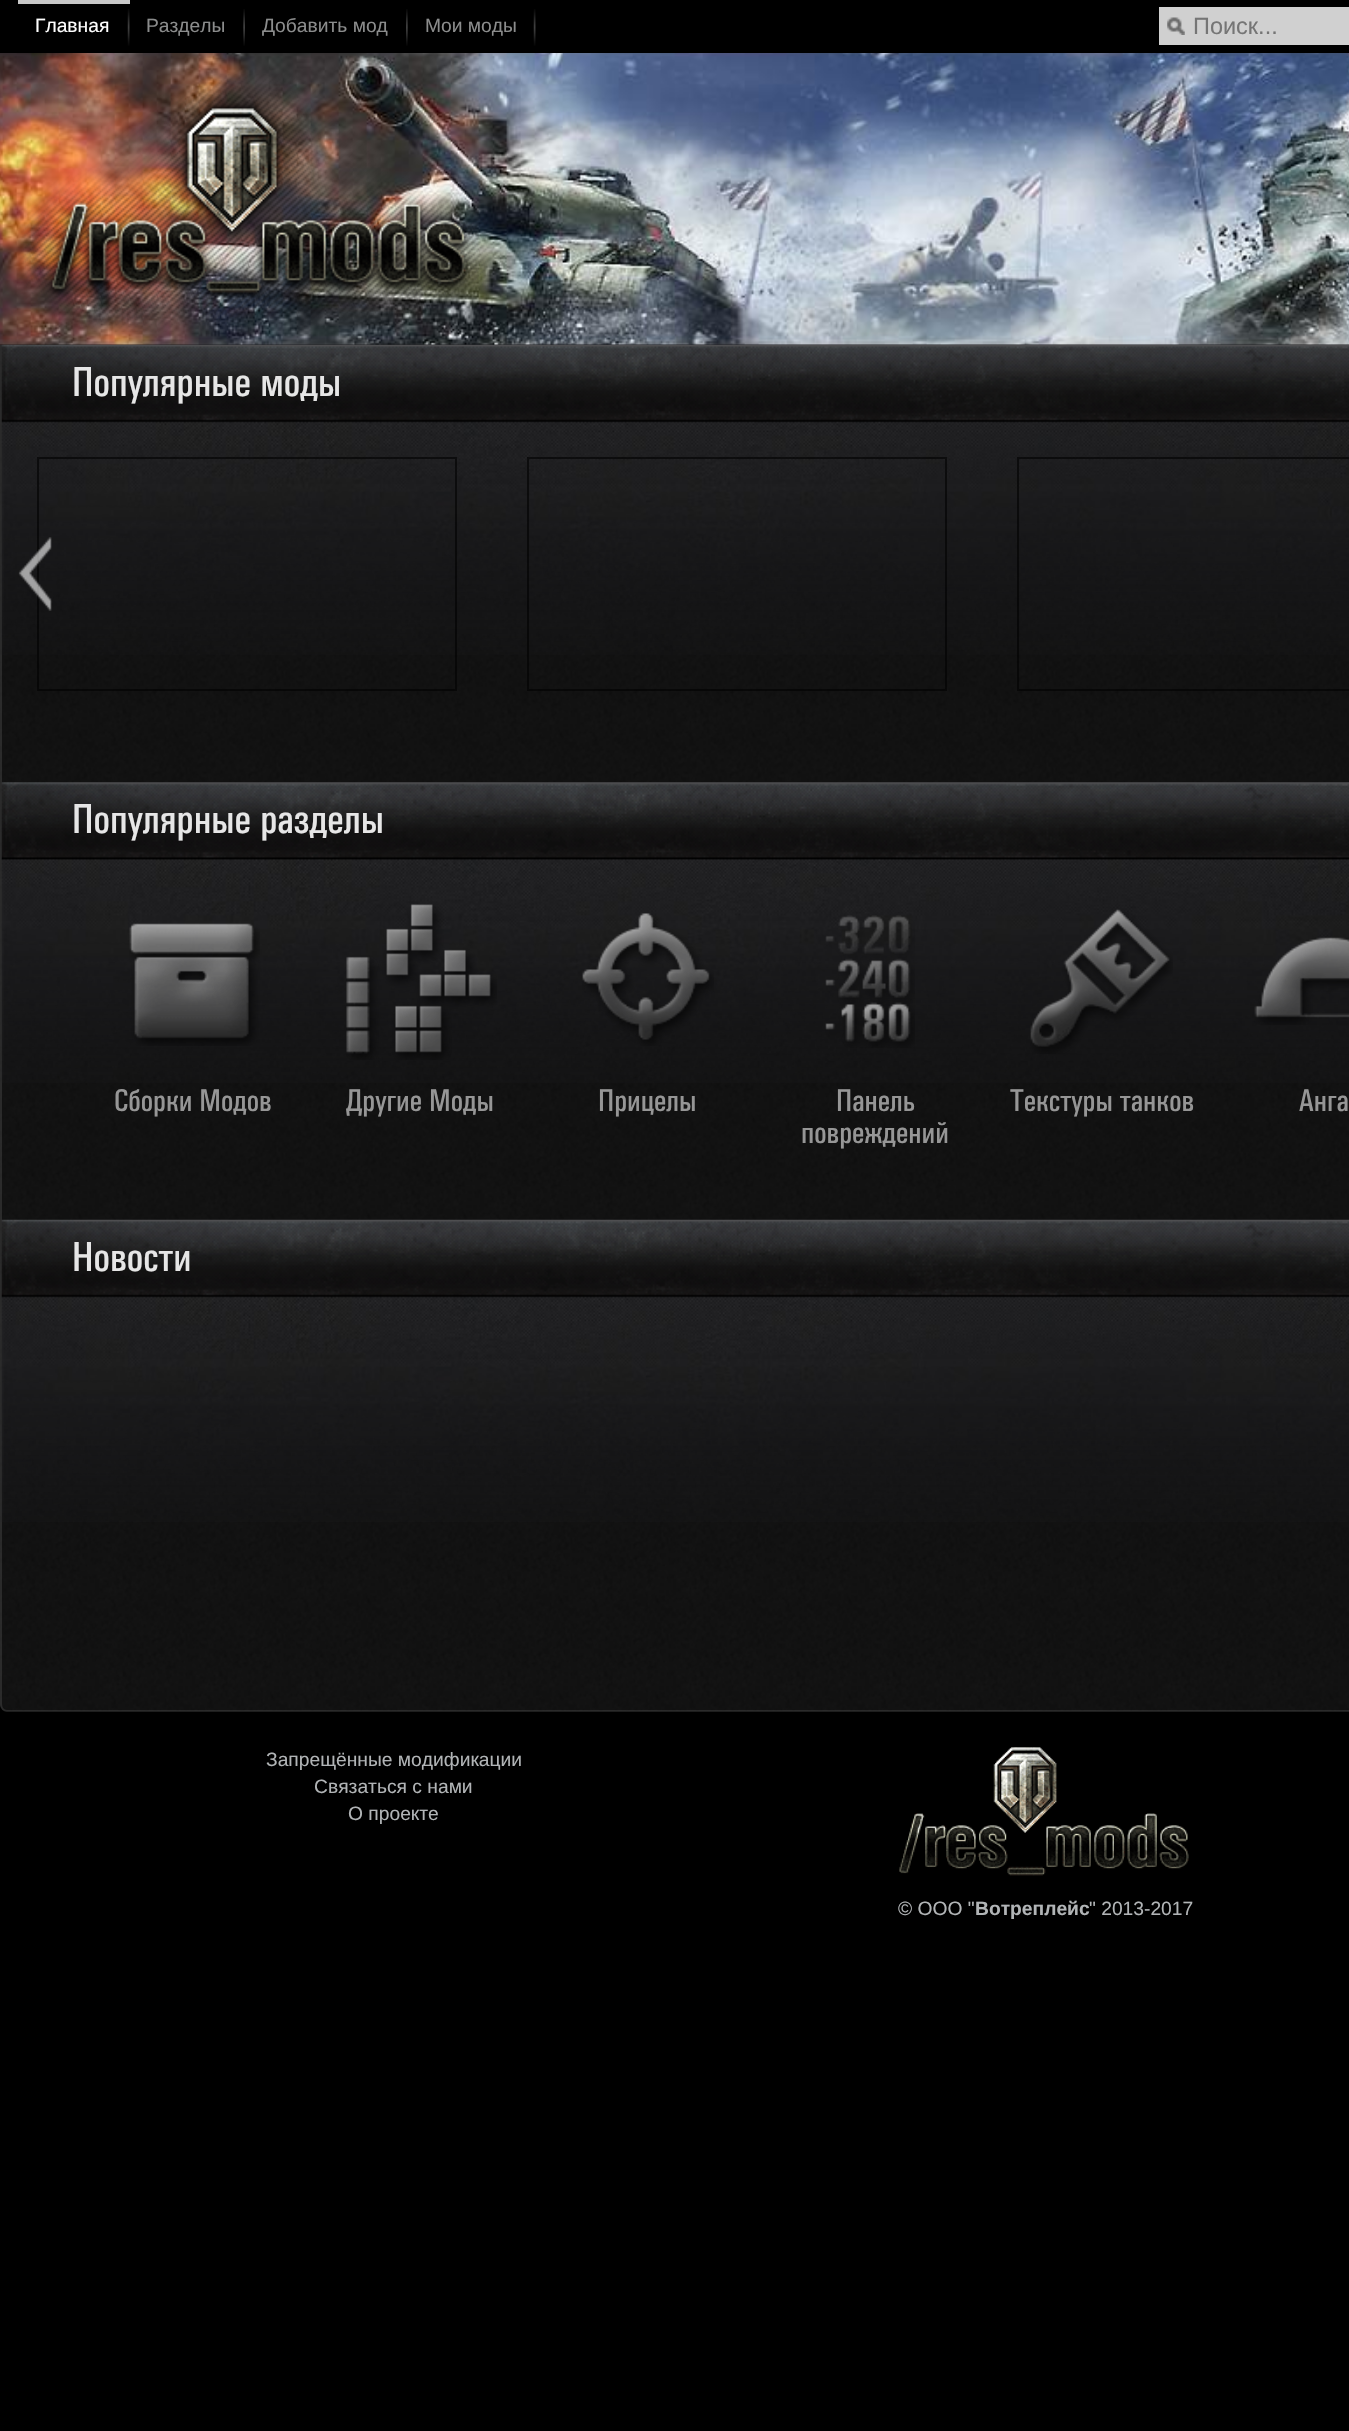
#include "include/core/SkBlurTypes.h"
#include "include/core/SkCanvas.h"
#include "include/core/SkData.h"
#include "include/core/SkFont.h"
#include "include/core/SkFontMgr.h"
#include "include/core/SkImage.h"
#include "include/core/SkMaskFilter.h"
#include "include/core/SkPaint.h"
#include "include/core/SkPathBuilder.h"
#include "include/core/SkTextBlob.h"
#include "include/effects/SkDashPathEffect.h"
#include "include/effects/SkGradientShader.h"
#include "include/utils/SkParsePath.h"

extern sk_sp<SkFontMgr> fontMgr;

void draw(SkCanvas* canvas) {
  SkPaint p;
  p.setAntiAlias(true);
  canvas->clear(SK_ColorBLACK);
  canvas->drawImageRect(SkImages::DeferredFromEncodedData(SkData::MakeFromFileName("images/1.png")), SkRect::MakeLTRB(0, 53, 1349, 345), SkSamplingOptions());
  canvas->drawImageRect(SkImages::DeferredFromEncodedData(SkData::MakeFromFileName("images/2.png")), SkRect::MakeLTRB(127, 9, 130, 46), SkSamplingOptions());
  p.setColor(SkColorSetRGB(200, 200, 200));
  canvas->drawRect(SkRect::MakeLTRB(18, 0, 130, 4), p);
  canvas->drawImageRect(SkImages::DeferredFromEncodedData(SkData::MakeFromFileName("images/3.png")), SkRect::MakeLTRB(243, 9, 245, 46), SkSamplingOptions());
  canvas->drawImageRect(SkImages::DeferredFromEncodedData(SkData::MakeFromFileName("images/4.png")), SkRect::MakeLTRB(406, 9, 408, 46), SkSamplingOptions());
  canvas->drawImageRect(SkImages::DeferredFromEncodedData(SkData::MakeFromFileName("images/2.png")), SkRect::MakeLTRB(533, 9, 536, 46), SkSamplingOptions());
  p.setColor(SkColorSetRGB(208, 208, 208));
  canvas->drawRect(SkRect::MakeLTRB(1159, 7, 1349, 45), p);
  canvas->drawImageRect(SkImages::DeferredFromEncodedData(SkData::MakeFromFileName("images/5.png")), SkRect::MakeLTRB(1167, 17, 1185, 35), SkSamplingOptions());
  canvas->drawImageRect(SkImages::DeferredFromEncodedData(SkData::MakeFromFileName("images/6.png")), SkRect::MakeLTRB(16, 74, 504, 332), SkSamplingOptions());
  canvas->drawImageRect(SkImages::DeferredFromEncodedData(SkData::MakeFromFileName("images/7.png")), SkRect::MakeLTRB(0, 344, 1349, 1712), SkSamplingOptions());
  p.setColor(SkColorSetARGB(26, 255, 255, 255));
  canvas->drawPath(SkPathBuilder(SkPathFillType::kEvenOdd).moveTo(0, 345).lineTo(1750, 345).lineTo(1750, 1704).cubicTo(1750, 1708, 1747, 1712, 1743, 1712).lineTo(7, 1712).cubicTo(3, 1712, 0, 1708, 0, 1704).close().moveTo(2, 345).lineTo(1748, 345).lineTo(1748, 1704).cubicTo(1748, 1707, 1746, 1710, 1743, 1710).lineTo(7, 1710).cubicTo(4, 1710, 2, 1707, 2, 1704).close().detach(), p);
  canvas->drawImageRect(SkImages::DeferredFromEncodedData(SkData::MakeFromFileName("images/8.png")), SkRect::MakeLTRB(1, 344, 1349, 655), SkSamplingOptions());
  p.setStyle(SkPaint::kStroke_Style);
  p.setStrokeWidth(2);
  p.setColor(SkColorSetARGB(153, 0, 0, 0));
  canvas->drawRect(SkRect::MakeLTRB(38, 458, 456, 690), p);
  canvas->drawImageRect(SkImages::DeferredFromEncodedData(SkData::MakeFromFileName("images/9.png")), SkRect::MakeLTRB(18, 537, 52, 611), SkSamplingOptions());
  canvas->drawRect(SkRect::MakeLTRB(528, 458, 946, 690), p);
  canvas->drawRect(SkRect::MakeLTRB(1018, 458, 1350, 690), p);
  canvas->drawImageRect(SkImages::DeferredFromEncodedData(SkData::MakeFromFileName("images/10.png")), SkRect::MakeLTRB(1, 782, 1349, 1083), SkSamplingOptions());
  canvas->drawImageRect(SkImages::DeferredFromEncodedData(SkData::MakeFromFileName("images/11.png")), SkRect::MakeLTRB(129, 923, 260, 1046), SkSamplingOptions());
  canvas->drawImageRect(SkImages::DeferredFromEncodedData(SkData::MakeFromFileName("images/12.png")), SkRect::MakeLTRB(346, 904, 497, 1060), SkSamplingOptions());
  canvas->drawImageRect(SkImages::DeferredFromEncodedData(SkData::MakeFromFileName("images/13.png")), SkRect::MakeLTRB(582, 913, 714, 1046), SkSamplingOptions());
  canvas->drawImageRect(SkImages::DeferredFromEncodedData(SkData::MakeFromFileName("images/14.png")), SkRect::MakeLTRB(825, 915, 915, 1048), SkSamplingOptions());
  canvas->drawImageRect(SkImages::DeferredFromEncodedData(SkData::MakeFromFileName("images/15.png")), SkRect::MakeLTRB(1030, 909, 1173, 1054), SkSamplingOptions());
  canvas->drawImageRect(SkImages::DeferredFromEncodedData(SkData::MakeFromFileName("images/16.png")), SkRect::MakeLTRB(1254, 937, 1349, 1025), SkSamplingOptions());
  canvas->drawImageRect(SkImages::DeferredFromEncodedData(SkData::MakeFromFileName("images/17.png")), SkRect::MakeLTRB(1, 1219, 1349, 1522), SkSamplingOptions());
  canvas->drawImageRect(SkImages::DeferredFromEncodedData(SkData::MakeFromFileName("images/18.png")), SkRect::MakeLTRB(899, 1747, 1189, 1876), SkSamplingOptions());
  SkFont font1(fontMgr->matchFamilyStyle("Liberation Sans", SkFontStyle::Normal()), 19.25f);
  font1.setSubpixel(true);
  p.setStyle(SkPaint::kFill_Style);
  p.setColor(SK_ColorWHITE);
  canvas->drawString("Главная", 35, 32, font1, p);
  p.setColor(SkColorSetRGB(139, 140, 140));
  canvas->drawString("Разделы", 146, 32, font1, p);
  canvas->drawString("Добавить мод", 262, 32, font1, p);
  canvas->drawString("Мои моды", 425, 32, font1, p);
  SkFont font2(fontMgr->matchFamilyStyle("Liberation Sans", SkFontStyle::Normal()), 23.5f);
  font2.setSubpixel(true);
  p.setColor(SkColorSetRGB(117, 117, 117));
  canvas->drawString("Поиск...", 1193, 34, font2, p);
  SkFont font3(fontMgr->matchFamilyStyle("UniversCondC", SkFontStyle::Normal()), 42);
  font3.setSubpixel(true);
  p.setColor(SkColorSetRGB(230, 230, 230));
  canvas->drawString("Популярные моды", 72, 396, font3, p);
  canvas->drawString("Популярные разделы", 72, 833, font3, p);
  SkFont font4(fontMgr->matchFamilyStyle("UniversCondC", SkFontStyle::Normal()), 31.5f);
  font4.setSubpixel(true);
  p.setColor(SkColorSetRGB(150, 150, 150));
  canvas->drawString("Сборки Модов", 114, 1111, font4, p);
  canvas->drawString("Другие Моды", 346, 1111, font4, p);
  canvas->drawString("Прицелы", 598, 1111, font4, p);
  canvas->drawString("Панель", 836, 1111, font4, p);
  canvas->drawString("повреждений", 801, 1143, font4, p);
  canvas->drawString("Текстуры танков", 1010, 1111, font4, p);
  canvas->drawString("Анга", 1299, 1111, font4, p);
  p.setColor(SkColorSetRGB(230, 230, 230));
  canvas->drawString("Новости", 72, 1271, font3, p);
  p.setColor(SkColorSetRGB(177, 180, 182));
  canvas->drawString("Запрещённые модификации", 266, 1766, font1, p);
  canvas->drawString("Связаться с нами", 314, 1793, font1, p);
  canvas->drawString("О проекте", 348, 1820, font1, p);
  canvas->drawString("© ООО \"", 898, 1915, font1, p);
  SkFont font5(fontMgr->matchFamilyStyle("Liberation Sans", SkFontStyle::Bold()), 19.25f);
  font5.setSubpixel(true);
  canvas->drawString("Вотреплейс", 975, 1915, font5, p);
  canvas->drawString("\" 2013-2017", 1089, 1915, font1, p);
}
